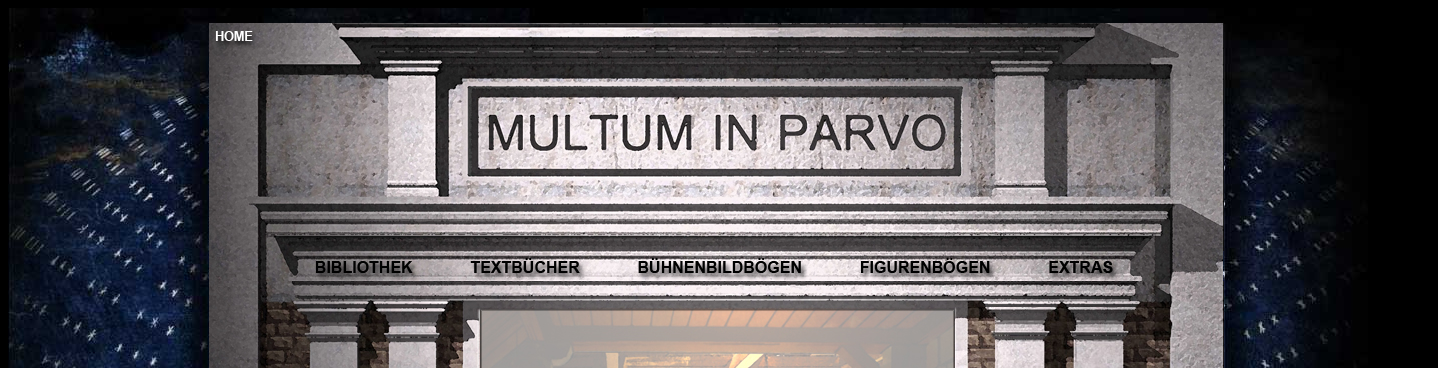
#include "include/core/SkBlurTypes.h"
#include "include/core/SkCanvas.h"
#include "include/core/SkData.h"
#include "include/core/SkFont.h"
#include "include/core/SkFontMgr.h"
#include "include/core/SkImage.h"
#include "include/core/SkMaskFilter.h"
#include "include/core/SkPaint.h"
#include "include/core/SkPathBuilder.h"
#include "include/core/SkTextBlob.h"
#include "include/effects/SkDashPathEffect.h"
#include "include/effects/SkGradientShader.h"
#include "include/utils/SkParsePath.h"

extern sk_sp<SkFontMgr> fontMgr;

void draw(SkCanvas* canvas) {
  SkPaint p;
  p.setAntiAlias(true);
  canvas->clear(SK_ColorBLACK);
  canvas->drawImageRect(SkImages::DeferredFromEncodedData(SkData::MakeFromFileName("images/1.png")), SkRect::MakeLTRB(8, 8, 1368, 368), SkSamplingOptions());
  canvas->drawImageRect(SkImages::DeferredFromEncodedData(SkData::MakeFromFileName("images/2.png")), SkRect::MakeLTRB(209, 23, 258, 50), SkSamplingOptions());
  canvas->drawImageRect(SkImages::DeferredFromEncodedData(SkData::MakeFromFileName("images/3.png")), SkRect::MakeLTRB(258, 23, 1224, 50), SkSamplingOptions());
  canvas->drawImageRect(SkImages::DeferredFromEncodedData(SkData::MakeFromFileName("images/4.png")), SkRect::MakeLTRB(209, 50, 1224, 251), SkSamplingOptions());
  canvas->drawImageRect(SkImages::DeferredFromEncodedData(SkData::MakeFromFileName("images/5.png")), SkRect::MakeLTRB(209, 251, 258, 281), SkSamplingOptions());
  canvas->drawImageRect(SkImages::DeferredFromEncodedData(SkData::MakeFromFileName("images/6.png")), SkRect::MakeLTRB(258, 251, 447, 281), SkSamplingOptions());
  canvas->drawImageRect(SkImages::DeferredFromEncodedData(SkData::MakeFromFileName("images/7.png")), SkRect::MakeLTRB(447, 251, 611, 281), SkSamplingOptions());
  canvas->drawImageRect(SkImages::DeferredFromEncodedData(SkData::MakeFromFileName("images/8.png")), SkRect::MakeLTRB(611, 251, 836, 281), SkSamplingOptions());
  canvas->drawImageRect(SkImages::DeferredFromEncodedData(SkData::MakeFromFileName("images/9.png")), SkRect::MakeLTRB(836, 251, 1020, 281), SkSamplingOptions());
  canvas->drawImageRect(SkImages::DeferredFromEncodedData(SkData::MakeFromFileName("images/10.png")), SkRect::MakeLTRB(1020, 251, 1223, 281), SkSamplingOptions());
  canvas->drawImageRect(SkImages::DeferredFromEncodedData(SkData::MakeFromFileName("images/11.png")), SkRect::MakeLTRB(209, 281, 1224, 309), SkSamplingOptions());
  canvas->drawImageRect(SkImages::DeferredFromEncodedData(SkData::MakeFromFileName("images/12.png")), SkRect::MakeLTRB(209, 309, 480, 368), SkSamplingOptions());
  canvas->drawImageRect(SkImages::DeferredFromEncodedData(SkData::MakeFromFileName("images/13.png")), SkRect::MakeLTRB(480, 309, 955, 368), SkSamplingOptions());
  canvas->drawImageRect(SkImages::DeferredFromEncodedData(SkData::MakeFromFileName("images/14.png")), SkRect::MakeLTRB(955, 307, 1224, 368), SkSamplingOptions());
}
